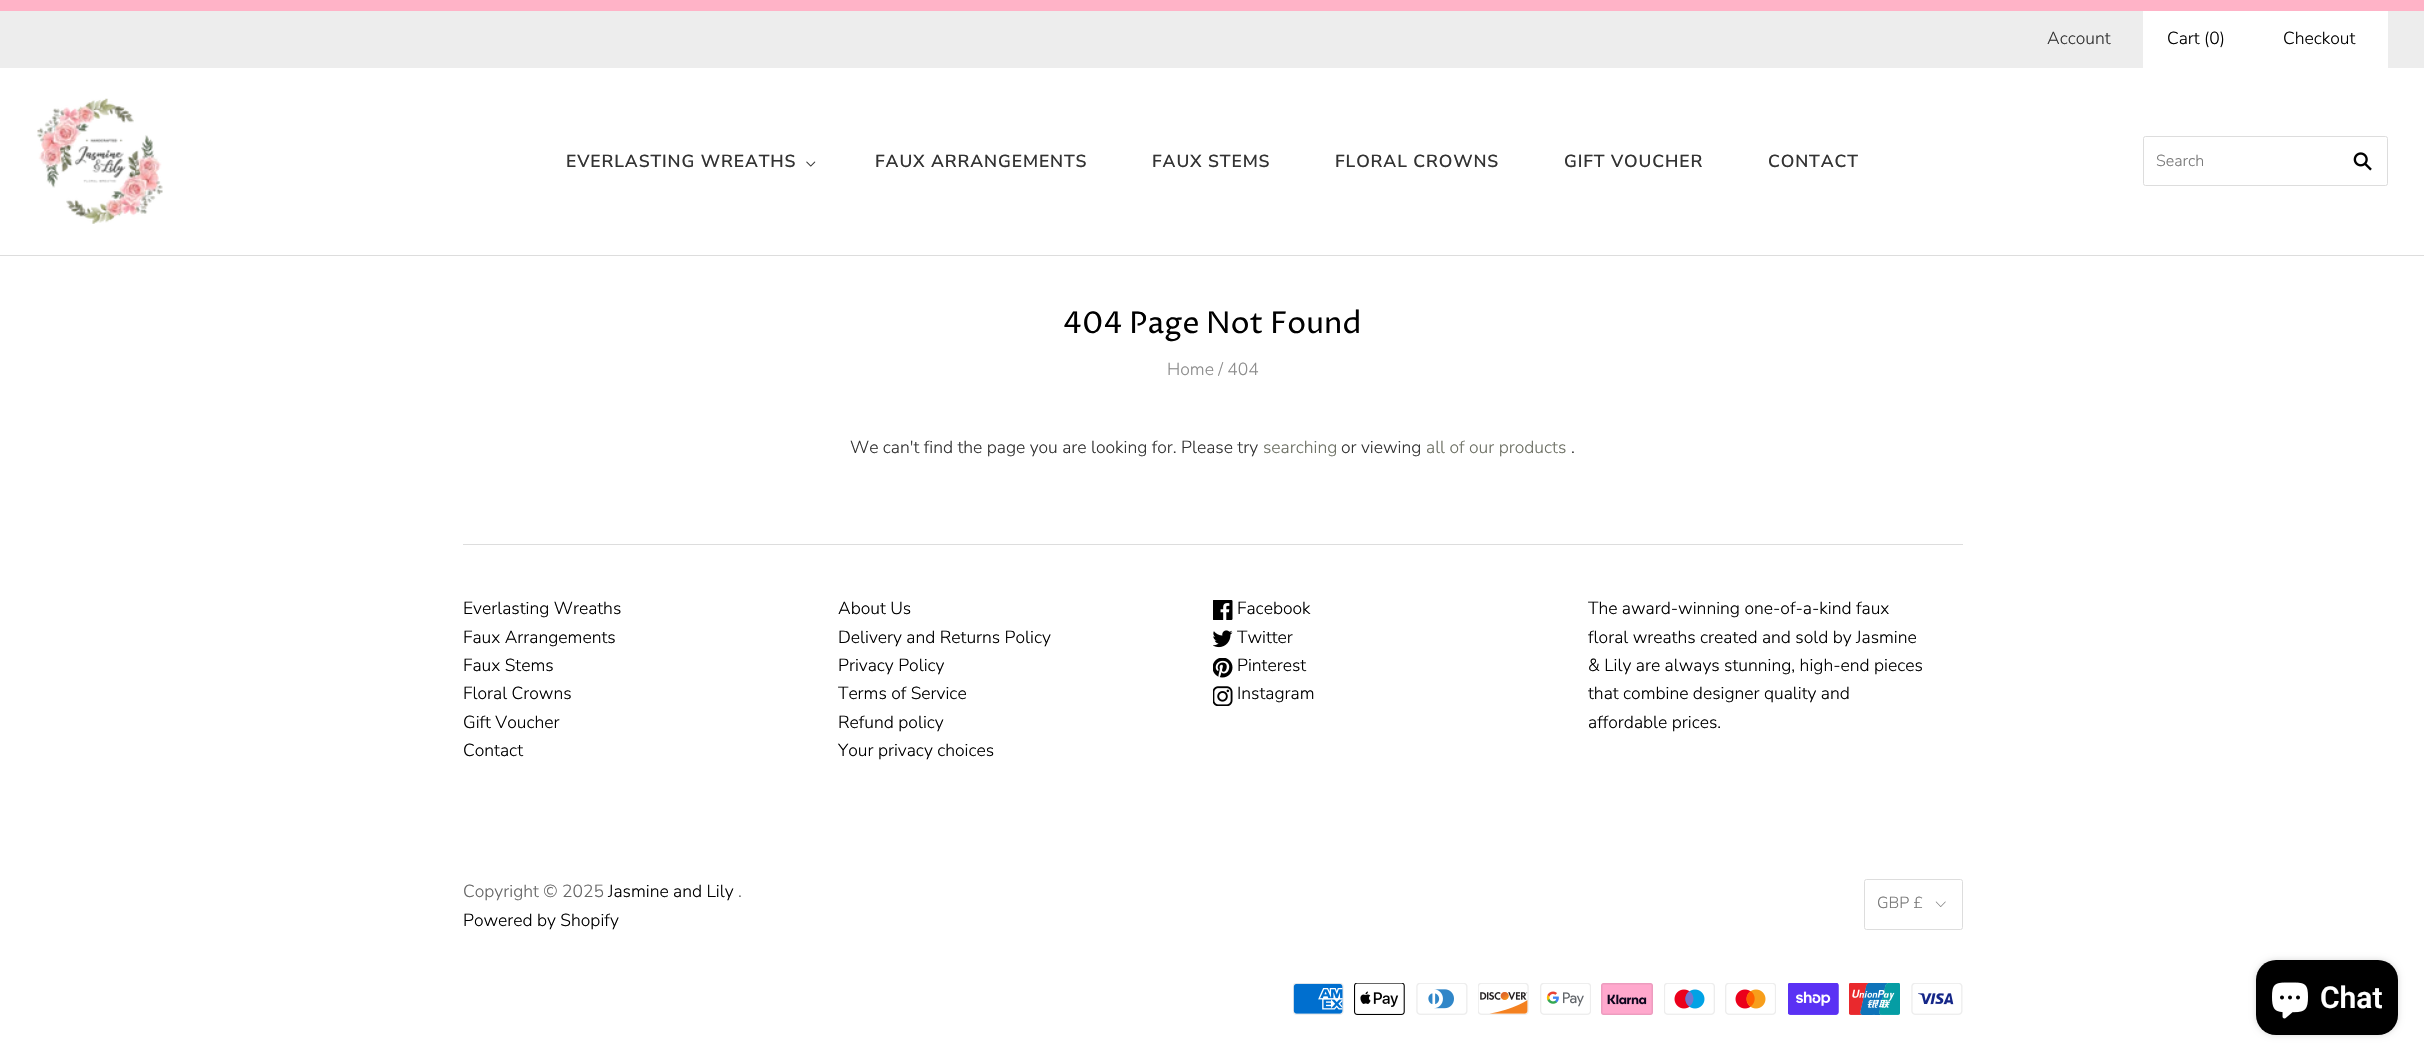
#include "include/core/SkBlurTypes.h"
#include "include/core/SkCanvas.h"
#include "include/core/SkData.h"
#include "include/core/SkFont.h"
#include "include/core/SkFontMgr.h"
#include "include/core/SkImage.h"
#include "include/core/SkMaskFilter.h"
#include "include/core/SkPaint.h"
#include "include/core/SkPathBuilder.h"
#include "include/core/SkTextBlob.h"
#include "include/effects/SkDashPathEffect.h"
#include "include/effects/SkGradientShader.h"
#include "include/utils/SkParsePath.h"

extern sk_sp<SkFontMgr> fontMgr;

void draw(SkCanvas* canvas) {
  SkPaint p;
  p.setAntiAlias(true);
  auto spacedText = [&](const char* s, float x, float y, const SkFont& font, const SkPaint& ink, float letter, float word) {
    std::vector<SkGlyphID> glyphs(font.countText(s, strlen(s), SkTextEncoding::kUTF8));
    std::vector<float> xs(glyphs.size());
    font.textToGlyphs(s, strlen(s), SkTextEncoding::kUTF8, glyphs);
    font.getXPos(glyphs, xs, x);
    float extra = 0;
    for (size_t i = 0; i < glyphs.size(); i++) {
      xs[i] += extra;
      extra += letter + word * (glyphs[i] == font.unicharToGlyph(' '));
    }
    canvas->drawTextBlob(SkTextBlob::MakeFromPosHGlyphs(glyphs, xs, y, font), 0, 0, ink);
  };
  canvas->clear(SK_ColorWHITE);
  p.setColor(SkColorSetRGB(255, 179, 199));
  canvas->drawRect(SkRect::MakeLTRB(0, 0, 2424, 11), p);
  p.setColor(SkColorSetRGB(221, 221, 221));
  canvas->drawRect(SkRect::MakeLTRB(0, 255, 2424, 256), p);
  p.setColor(SkColorSetRGB(237, 237, 237));
  canvas->drawRect(SkRect::MakeLTRB(0, 11, 2424, 68), p);
  p.setColor(SK_ColorWHITE);
  canvas->drawRect(SkRect::MakeLTRB(2143, 11, 2388, 68), p);
  canvas->drawImageRect(SkImages::DeferredFromEncodedData(SkData::MakeFromFileName("images/1.png")), SkRect::MakeLTRB(37, 98, 163, 224), SkSamplingOptions());
  canvas->drawImageRect(SkImages::DeferredFromEncodedData(SkData::MakeFromFileName("images/2.png")), SkRect::MakeLTRB(806, 161, 816, 167), SkSamplingOptions());
  p.setStyle(SkPaint::kStroke_Style);
  p.setStrokeWidth(1);
  p.setColor(SkColorSetRGB(221, 221, 221));
  canvas->drawRoundRect(SkRect::MakeLTRB(2143.5f, 136.5f, 2387.5f, 185.5f), 2, 2, p);
  canvas->drawImageRect(SkImages::DeferredFromEncodedData(SkData::MakeFromFileName("images/3.png")), SkRect::MakeLTRB(2353, 152, 2372, 171), SkSamplingOptions());
  p.setStyle(SkPaint::kFill_Style);
  canvas->drawRect(SkRect::MakeLTRB(463, 544, 1963, 545), p);
  canvas->drawImageRect(SkImages::DeferredFromEncodedData(SkData::MakeFromFileName("images/4.png")), SkRect::MakeLTRB(1213, 600, 1233, 620), SkSamplingOptions());
  canvas->drawImageRect(SkImages::DeferredFromEncodedData(SkData::MakeFromFileName("images/5.png")), SkRect::MakeLTRB(1213, 630, 1233, 648), SkSamplingOptions());
  canvas->drawImageRect(SkImages::DeferredFromEncodedData(SkData::MakeFromFileName("images/6.png")), SkRect::MakeLTRB(1213, 658, 1233, 678), SkSamplingOptions());
  canvas->drawImageRect(SkImages::DeferredFromEncodedData(SkData::MakeFromFileName("images/7.png")), SkRect::MakeLTRB(1213, 686, 1233, 706), SkSamplingOptions());
  p.setStyle(SkPaint::kStroke_Style);
  canvas->drawRoundRect(SkRect::MakeLTRB(1864.5f, 879.5f, 1962.5f, 929.5f), 2, 2, p);
  canvas->drawImageRect(SkImages::DeferredFromEncodedData(SkData::MakeFromFileName("images/8.png")), SkRect::MakeLTRB(1935, 901, 1946, 907), SkSamplingOptions());
  canvas->drawImageRect(SkImages::DeferredFromEncodedData(SkData::MakeFromFileName("images/9.png")), SkRect::MakeLTRB(1293, 983, 1344, 1015), SkSamplingOptions());
  canvas->drawImageRect(SkImages::DeferredFromEncodedData(SkData::MakeFromFileName("images/10.png")), SkRect::MakeLTRB(1354, 983, 1405, 1015), SkSamplingOptions());
  canvas->drawImageRect(SkImages::DeferredFromEncodedData(SkData::MakeFromFileName("images/11.png")), SkRect::MakeLTRB(1416, 983, 1468, 1015), SkSamplingOptions());
  canvas->drawImageRect(SkImages::DeferredFromEncodedData(SkData::MakeFromFileName("images/12.png")), SkRect::MakeLTRB(1478, 983, 1529, 1015), SkSamplingOptions());
  canvas->drawImageRect(SkImages::DeferredFromEncodedData(SkData::MakeFromFileName("images/13.png")), SkRect::MakeLTRB(1540, 983, 1591, 1015), SkSamplingOptions());
  canvas->drawImageRect(SkImages::DeferredFromEncodedData(SkData::MakeFromFileName("images/14.png")), SkRect::MakeLTRB(1601, 983, 1653, 1015), SkSamplingOptions());
  canvas->drawImageRect(SkImages::DeferredFromEncodedData(SkData::MakeFromFileName("images/15.png")), SkRect::MakeLTRB(1664, 983, 1715, 1015), SkSamplingOptions());
  canvas->drawImageRect(SkImages::DeferredFromEncodedData(SkData::MakeFromFileName("images/16.png")), SkRect::MakeLTRB(1725, 983, 1776, 1015), SkSamplingOptions());
  canvas->drawImageRect(SkImages::DeferredFromEncodedData(SkData::MakeFromFileName("images/17.png")), SkRect::MakeLTRB(1788, 983, 1839, 1015), SkSamplingOptions());
  canvas->drawImageRect(SkImages::DeferredFromEncodedData(SkData::MakeFromFileName("images/18.png")), SkRect::MakeLTRB(1849, 983, 1900, 1015), SkSamplingOptions());
  canvas->drawImageRect(SkImages::DeferredFromEncodedData(SkData::MakeFromFileName("images/19.png")), SkRect::MakeLTRB(1911, 983, 1963, 1015), SkSamplingOptions());
  p.setStyle(SkPaint::kFill_Style);
  p.setColor(SkColorSetARGB(38, 0, 0, 0));
  p.setMaskFilter(SkMaskFilter::MakeBlur(kNormal_SkBlurStyle, 3));
  canvas->drawRoundRect(SkRect::MakeLTRB(2256, 960, 2398, 1035), 20, 20, p);
  p.setMaskFilter(nullptr);
  p.setColor(SK_ColorBLACK);
  canvas->drawRoundRect(SkRect::MakeLTRB(2256, 960, 2398, 1035), 20, 20, p);
  canvas->drawImageRect(SkImages::DeferredFromEncodedData(SkData::MakeFromFileName("images/20.png")), SkRect::MakeLTRB(2272, 982, 2308, 1019), SkSamplingOptions());
  SkFont font1(fontMgr->matchFamilyStyle("Nunito Sans", SkFontStyle(300, SkFontStyle::kNormal_Width, SkFontStyle::kUpright_Slant)), 17.5f);
  font1.setSubpixel(true);
  p.setColor(SkColorSetRGB(51, 51, 51));
  canvas->drawString("Account", 2047, 44, font1, p);
  p.setColor(SK_ColorBLACK);
  canvas->drawString("Cart (0)", 2167, 44, font1, p);
  canvas->drawString("Checkout", 2283, 44, font1, p);
  SkFont font2(fontMgr->matchFamilyStyle("Nunito Sans", SkFontStyle(600, SkFontStyle::kNormal_Width, SkFontStyle::kUpright_Slant)), 17.5f);
  font2.setSubpixel(true);
  p.setColor(SkColorSetRGB(51, 51, 51));
  spacedText("EVERLASTING WREATHS", 566, 167, font2, p, 0.9f, 0);
  spacedText("FAUX ARRANGEMENTS", 875, 167, font2, p, 0.9f, 0);
  spacedText("FAUX STEMS", 1152, 167, font2, p, 0.9f, 0);
  spacedText("FLORAL CROWNS", 1335, 167, font2, p, 0.9f, 0);
  spacedText("GIFT VOUCHER", 1564, 167, font2, p, 0.9f, 0);
  spacedText("CONTACT", 1768, 167, font2, p, 0.9f, 0);
  SkFont font3(fontMgr->matchFamilyStyle("Nunito Sans", SkFontStyle(300, SkFontStyle::kNormal_Width, SkFontStyle::kUpright_Slant)), 16);
  font3.setSubpixel(true);
  p.setColor(SkColorSetRGB(120, 120, 120));
  canvas->drawString("Search", 2156, 166, font3, p);
  SkFont font4(fontMgr->matchFamilyStyle("Proza Libre", SkFontStyle::Normal()), 30);
  font4.setSubpixel(true);
  p.setColor(SK_ColorBLACK);
  canvas->drawString("404 Page Not Found", 1063, 333, font4, p);
  p.setColor(SkColorSetRGB(138, 138, 138));
  canvas->drawString("Home / 404", 1167, 375, font1, p);
  p.setColor(SkColorSetRGB(51, 51, 51));
  canvas->drawString("We can't find the page you are looking for. Please try", 850, 453, font1, p);
  p.setColor(SkColorSetRGB(108, 111, 99));
  canvas->drawString("searching", 1263, 453, font1, p);
  p.setColor(SkColorSetRGB(51, 51, 51));
  canvas->drawString("or viewing", 1341, 453, font1, p);
  p.setColor(SkColorSetRGB(108, 111, 99));
  canvas->drawString("all of our products", 1426, 453, font1, p);
  p.setColor(SkColorSetRGB(51, 51, 51));
  canvas->drawString(".", 1571, 453, font1, p);
  p.setColor(SK_ColorBLACK);
  canvas->drawString("Everlasting Wreaths", 463, 614, font1, p);
  canvas->drawString("Faux Arrangements", 463, 643, font1, p);
  canvas->drawString("Faux Stems", 463, 671, font1, p);
  canvas->drawString("Floral Crowns", 463, 699, font1, p);
  canvas->drawString("Gift Voucher", 463, 728, font1, p);
  canvas->drawString("Contact", 463, 756, font1, p);
  canvas->drawString("About Us", 838, 614, font1, p);
  canvas->drawString("Delivery and Returns Policy", 838, 643, font1, p);
  canvas->drawString("Privacy Policy", 838, 671, font1, p);
  canvas->drawString("Terms of Service", 838, 699, font1, p);
  canvas->drawString("Refund policy", 838, 728, font1, p);
  canvas->drawString("Your privacy choices", 838, 756, font1, p);
  canvas->drawString("Facebook", 1237, 614, font1, p);
  canvas->drawString("Twitter", 1237, 643, font1, p);
  canvas->drawString("Pinterest", 1237, 671, font1, p);
  canvas->drawString("Instagram", 1237, 699, font1, p);
  canvas->drawString("The award-winning one-of-a-kind faux", 1588, 614, font1, p);
  canvas->drawString("floral wreaths created and sold by Jasmine", 1588, 643, font1, p);
  canvas->drawString("& Lily are always stunning, high-end pieces", 1588, 671, font1, p);
  canvas->drawString("that combine designer quality and", 1588, 699, font1, p);
  canvas->drawString("affordable prices.", 1588, 728, font1, p);
  p.setColor(SkColorSetRGB(102, 102, 102));
  canvas->drawString("Copyright © 2025", 463, 897, font1, p);
  p.setColor(SK_ColorBLACK);
  canvas->drawString("Jasmine and Lily", 608, 897, font1, p);
  p.setColor(SkColorSetRGB(102, 102, 102));
  canvas->drawString(".", 738, 897, font1, p);
  p.setColor(SK_ColorBLACK);
  canvas->drawString("Powered by Shopify", 463, 926, font1, p);
  p.setColor(SkColorSetRGB(120, 120, 120));
  canvas->drawString("GBP £", 1877, 908, font3, p);
  SkFont font5(fontMgr->matchFamilyStyle("Roboto", SkFontStyle(600, SkFontStyle::kNormal_Width, SkFontStyle::kUpright_Slant)), 30);
  font5.setSubpixel(true);
  p.setColor(SK_ColorWHITE);
  canvas->drawString("Chat", 2320, 1008, font5, p);
}
